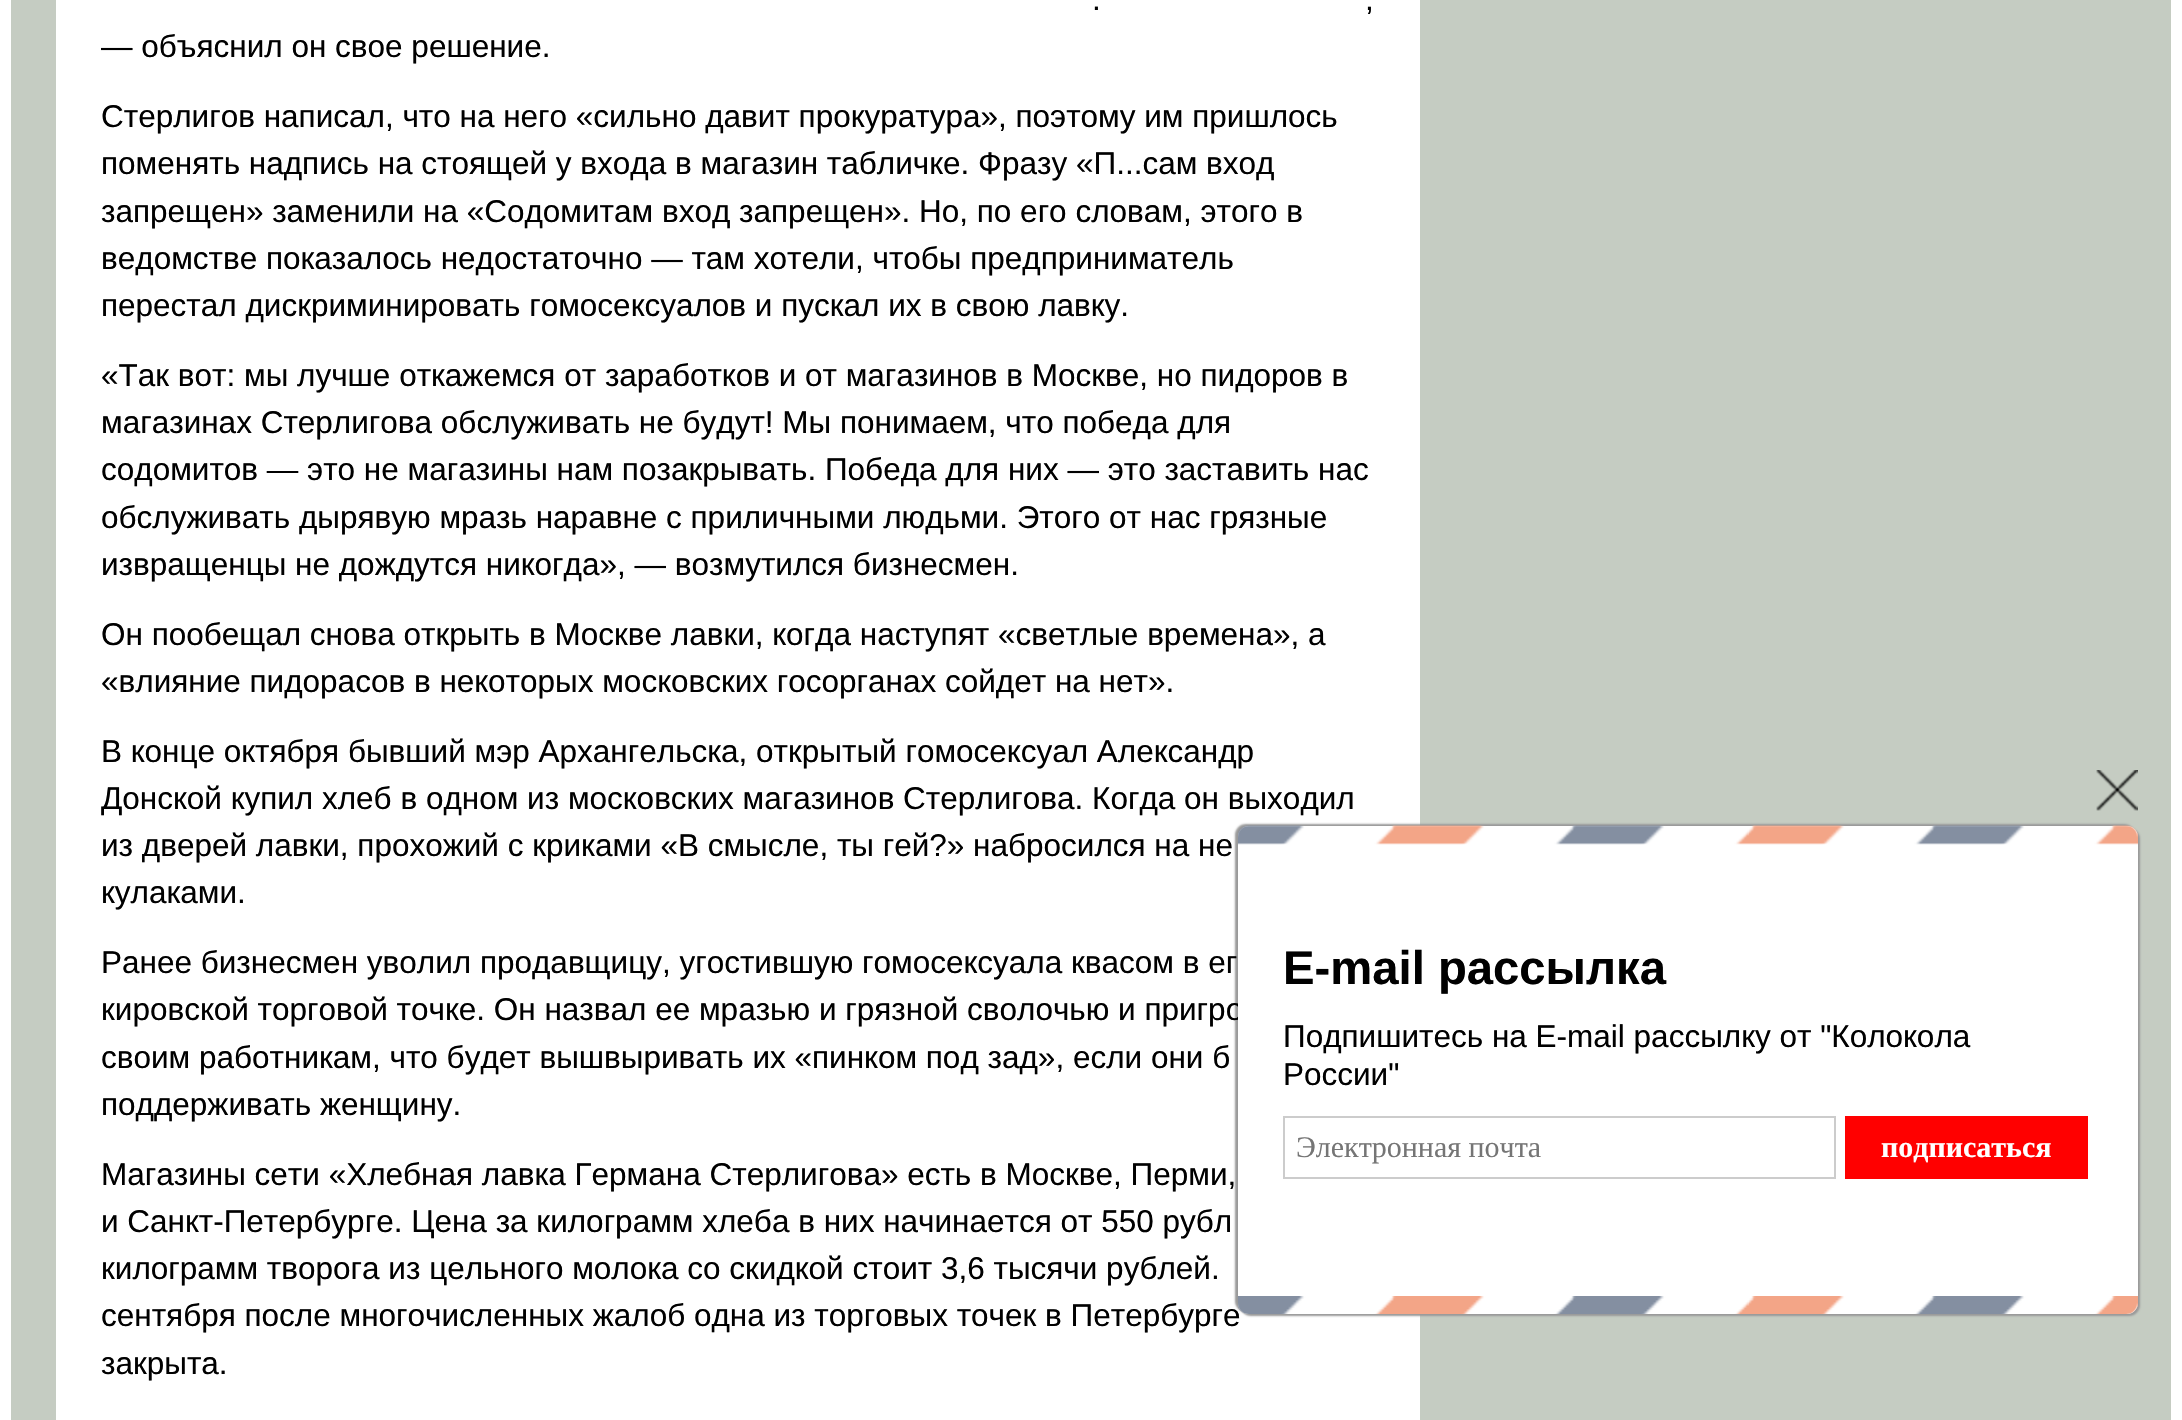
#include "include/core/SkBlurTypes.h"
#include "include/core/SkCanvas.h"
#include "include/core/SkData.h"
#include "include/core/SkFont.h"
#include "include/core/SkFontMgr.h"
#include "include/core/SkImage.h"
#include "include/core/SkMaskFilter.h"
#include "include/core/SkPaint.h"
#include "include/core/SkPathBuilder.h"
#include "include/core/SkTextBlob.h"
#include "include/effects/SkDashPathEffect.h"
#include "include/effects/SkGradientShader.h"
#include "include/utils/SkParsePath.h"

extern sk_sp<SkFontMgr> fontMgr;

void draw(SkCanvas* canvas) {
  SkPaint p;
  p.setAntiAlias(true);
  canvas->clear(SK_ColorWHITE);
  p.setColor(SkColorSetRGB(197, 204, 194));
  canvas->drawRect(SkRect::MakeLTRB(11, 0, 2171, 1420), p);
  p.setColor(SK_ColorWHITE);
  canvas->drawRect(SkRect::MakeLTRB(56, 0, 1420, 1420), p);
  p.setColor(SkColorSetRGB(153, 153, 153));
  p.setMaskFilter(SkMaskFilter::MakeBlur(kNormal_SkBlurStyle, 1));
  canvas->drawRoundRect(SkRect::MakeLTRB(1240, 828, 2140, 1316), 11, 11, p);
  p.setMaskFilter(nullptr);
  p.setMaskFilter(SkMaskFilter::MakeBlur(kNormal_SkBlurStyle, 1));
  canvas->drawRoundRect(SkRect::MakeLTRB(1235, 824, 2135, 1312), 11, 11, p);
  p.setMaskFilter(nullptr);
  canvas->drawImageRect(SkImages::DeferredFromEncodedData(SkData::MakeFromFileName("images/2.png")), SkRect::MakeLTRB(2096, 770, 2138, 811), SkSamplingOptions());
  SkFont font1(fontMgr->matchFamilyStyle("Liberation Sans", SkFontStyle::Normal()), 31.5f);
  font1.setSubpixel(true);
  p.setColor(SK_ColorBLACK);
  canvas->drawString(".", 1092, 10, font1, p);
  canvas->drawString(",", 1365, 10, font1, p);
  canvas->drawString("— объяснил он свое решение.", 101, 57, font1, p);
  canvas->drawString("Стерлигов написал, что на него «сильно давит прокуратура», поэтому им пришлось", 101, 127, font1, p);
  canvas->drawString("поменять надпись на стоящей у входа в магазин табличке. Фразу «П...сам вход", 101, 174, font1, p);
  canvas->drawString("запрещен» заменили на «Содомитам вход запрещен». Но, по его словам, этого в", 101, 222, font1, p);
  canvas->drawString("ведомстве показалось недостаточно — там хотели, чтобы предприниматель", 101, 269, font1, p);
  canvas->drawString("перестал дискриминировать гомосексуалов и пускал их в свою лавку.", 101, 316, font1, p);
  canvas->drawString("«Так вот: мы лучше откажемся от заработков и от магазинов в Москве, но пидоров в", 101, 386, font1, p);
  canvas->drawString("магазинах Стерлигова обслуживать не будут! Мы понимаем, что победа для", 101, 433, font1, p);
  canvas->drawString("содомитов — это не магазины нам позакрывать. Победа для них — это заставить нас", 101, 480, font1, p);
  canvas->drawString("обслуживать дырявую мразь наравне с приличными людьми. Этого от нас грязные", 101, 528, font1, p);
  canvas->drawString("извращенцы не дождутся никогда», — возмутился бизнесмен.", 101, 575, font1, p);
  canvas->drawString("Он пообещал снова открыть в Москве лавки, когда наступят «светлые времена», а", 101, 645, font1, p);
  canvas->drawString("«влияние пидорасов в некоторых московских госорганах сойдет на нет».", 101, 692, font1, p);
  canvas->drawString("В конце октября бывший мэр Архангельска, открытый гомосексуал Александр", 101, 762, font1, p);
  canvas->drawString("Донской купил хлеб в одном из московских магазинов Стерлигова. Когда он выходил", 101, 809, font1, p);
  canvas->drawString("из дверей лавки, прохожий с криками «В смысле, ты гей?» набросился на не", 101, 856, font1, p);
  canvas->drawString("кулаками.", 101, 903, font1, p);
  canvas->drawString("Ранее бизнесмен уволил продавщицу, угостившую гомосексуала квасом в ег", 101, 973, font1, p);
  canvas->drawString("кировской торговой точке. Он назвал ее мразью и грязной сволочью и пригро", 101, 1020, font1, p);
  canvas->drawString("своим работникам, что будет вышвыривать их «пинком под зад», если они б", 101, 1068, font1, p);
  canvas->drawString("поддерживать женщину.", 101, 1115, font1, p);
  canvas->drawString("Магазины сети «Хлебная лавка Германа Стерлигова» есть в Москве, Перми,", 101, 1185, font1, p);
  canvas->drawString("и Санкт-Петербурге. Цена за килограмм хлеба в них начинается от 550 рубл", 101, 1232, font1, p);
  canvas->drawString("килограмм творога из цельного молока со скидкой стоит 3,6 тысячи рублей.", 101, 1279, font1, p);
  canvas->drawString("сентября после многочисленных жалоб одна из торговых точек в Петербурге", 101, 1326, font1, p);
  canvas->drawString("закрыта.", 101, 1374, font1, p);
  p.setColor(SK_ColorWHITE);
  canvas->drawRoundRect(SkRect::MakeLTRB(1238, 826, 2138, 1314), 11, 11, p);
  canvas->drawImageRect(SkImages::DeferredFromEncodedData(SkData::MakeFromFileName("images/1.png")), SkRect::MakeLTRB(1238, 825, 2138, 845), SkSamplingOptions());
  SkFont font2(fontMgr->matchFamilyStyle("Liberation Sans", SkFontStyle::Bold()), 47.25f);
  font2.setSubpixel(true);
  p.setColor(SK_ColorBLACK);
  canvas->drawString("E-mail рассылка", 1283, 984, font2, p);
  canvas->drawString("Подпишитесь на E-mail рассылку от \"Колокола", 1283, 1047, font1, p);
  canvas->drawString("России\"", 1283, 1085, font1, p);
  p.setStyle(SkPaint::kStroke_Style);
  p.setStrokeWidth(2);
  p.setColor(SkColorSetRGB(204, 204, 204));
  canvas->drawRect(SkRect::MakeLTRB(1284, 1117, 1835, 1178), p);
  SkFont font3(fontMgr->matchFamilyStyle("Liberation Serif", SkFontStyle::Normal()), 30);
  font3.setSubpixel(true);
  p.setStyle(SkPaint::kFill_Style);
  p.setColor(SkColorSetRGB(117, 117, 117));
  canvas->drawString("Электронная почта", 1296, 1157, font3, p);
  p.setColor(SkColorSetRGB(255, 0, 0));
  canvas->drawRect(SkRect::MakeLTRB(1845, 1116, 2088, 1179), p);
  SkFont font4(fontMgr->matchFamilyStyle("Liberation Serif", SkFontStyle::Bold()), 30);
  font4.setSubpixel(true);
  p.setColor(SK_ColorWHITE);
  canvas->drawString("подписаться", 1881, 1157, font4, p);
  canvas->drawImageRect(SkImages::DeferredFromEncodedData(SkData::MakeFromFileName("images/3.png")), SkRect::MakeLTRB(1238, 1296, 2138, 1314), SkSamplingOptions());
}
